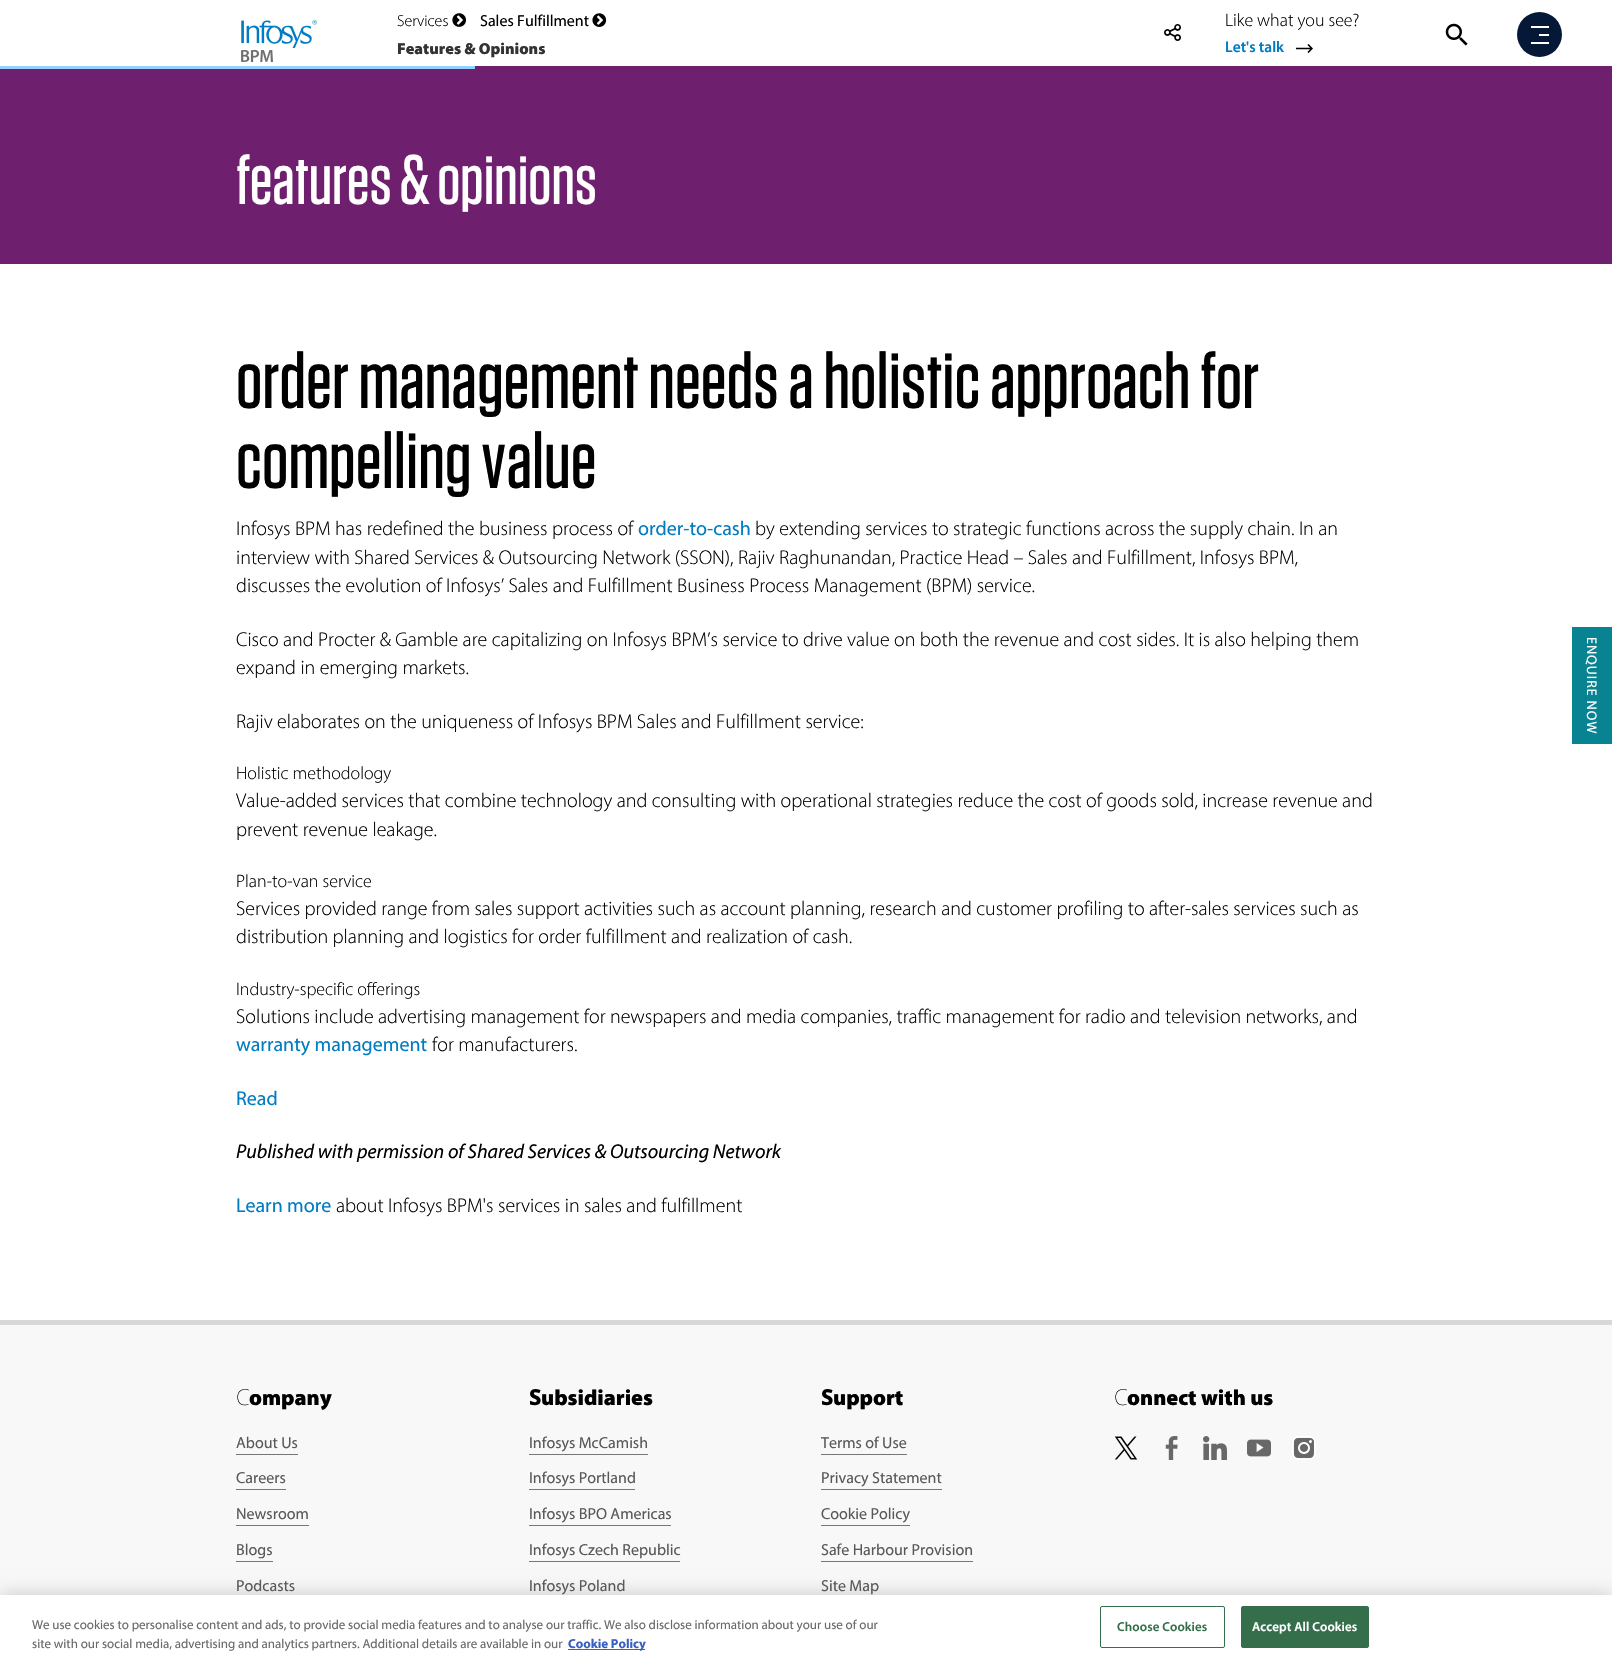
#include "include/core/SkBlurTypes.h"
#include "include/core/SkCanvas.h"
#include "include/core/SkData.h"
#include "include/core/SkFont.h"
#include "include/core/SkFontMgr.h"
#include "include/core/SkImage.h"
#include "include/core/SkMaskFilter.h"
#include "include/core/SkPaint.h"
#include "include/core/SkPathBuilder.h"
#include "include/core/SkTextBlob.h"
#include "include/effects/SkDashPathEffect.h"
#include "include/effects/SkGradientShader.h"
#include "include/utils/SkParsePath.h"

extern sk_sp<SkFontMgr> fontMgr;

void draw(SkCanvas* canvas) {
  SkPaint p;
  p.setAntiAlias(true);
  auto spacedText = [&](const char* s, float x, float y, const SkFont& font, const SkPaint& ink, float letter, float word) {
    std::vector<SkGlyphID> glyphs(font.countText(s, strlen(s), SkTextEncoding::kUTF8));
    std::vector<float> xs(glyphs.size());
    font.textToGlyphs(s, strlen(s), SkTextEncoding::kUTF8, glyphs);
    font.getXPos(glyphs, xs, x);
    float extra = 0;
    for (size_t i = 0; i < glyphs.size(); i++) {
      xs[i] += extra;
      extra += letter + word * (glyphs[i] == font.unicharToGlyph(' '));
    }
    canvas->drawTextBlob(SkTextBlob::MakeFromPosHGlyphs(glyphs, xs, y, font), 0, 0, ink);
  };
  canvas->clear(SK_ColorWHITE);
  canvas->drawImageRect(SkImages::DeferredFromEncodedData(SkData::MakeFromFileName("images/1.png")), SkRect::MakeLTRB(452, 13, 466, 27), SkSamplingOptions());
  canvas->drawImageRect(SkImages::DeferredFromEncodedData(SkData::MakeFromFileName("images/2.png")), SkRect::MakeLTRB(592, 13, 607, 27), SkSamplingOptions());
  canvas->drawImageRect(SkImages::DeferredFromEncodedData(SkData::MakeFromFileName("images/3.png")), SkRect::MakeLTRB(1164, 24, 1181, 41), SkSamplingOptions());
  canvas->drawImageRect(SkImages::DeferredFromEncodedData(SkData::MakeFromFileName("images/4.png")), SkRect::MakeLTRB(1296, 44, 1313, 53), SkSamplingOptions());
  p.setColor(SkColorSetRGB(110, 31, 110));
  canvas->drawRect(SkRect::MakeLTRB(0, 66, 1612, 264), p);
  p.setColor(SkColorSetRGB(6, 24, 56));
  canvas->drawCircle(1539.5f, 34.5f, 22.5f, p);
  p.setColor(SK_ColorWHITE);
  canvas->drawRect(SkRect::MakeLTRB(1531, 26, 1549, 28), p);
  canvas->drawRect(SkRect::MakeLTRB(1539, 34, 1549, 36), p);
  canvas->drawRect(SkRect::MakeLTRB(1531, 42, 1549, 44), p);
  canvas->drawImageRect(SkImages::DeferredFromEncodedData(SkData::MakeFromFileName("images/5.png")), SkRect::MakeLTRB(241, 20, 317, 62), SkSamplingOptions());
  canvas->drawImageRect(SkImages::DeferredFromEncodedData(SkData::MakeFromFileName("images/6.png")), SkRect::MakeLTRB(1445, 23, 1468, 46), SkSamplingOptions());
  p.setColor(SkColorSetRGB(146, 209, 255));
  canvas->drawRect(SkRect::MakeLTRB(0, 66, 475, 69), p);
  p.setColor(SkColorSetRGB(248, 248, 248));
  canvas->drawRect(SkRect::MakeLTRB(0, 1325, 1612, 1595), p);
  p.setColor(SkColorSetRGB(216, 216, 216));
  canvas->drawRect(SkRect::MakeLTRB(0, 1320, 1612, 1325), p);
  p.setColor(SkColorSetRGB(118, 118, 118));
  canvas->drawRect(SkRect::MakeLTRB(236, 1454, 298, 1455), p);
  canvas->drawRect(SkRect::MakeLTRB(236, 1489, 286, 1490), p);
  canvas->drawRect(SkRect::MakeLTRB(236, 1525, 309, 1526), p);
  canvas->drawRect(SkRect::MakeLTRB(236, 1561, 273, 1562), p);
  canvas->drawRect(SkRect::MakeLTRB(529, 1454, 648, 1455), p);
  canvas->drawRect(SkRect::MakeLTRB(529, 1489, 635, 1490), p);
  canvas->drawRect(SkRect::MakeLTRB(529, 1525, 671, 1526), p);
  canvas->drawRect(SkRect::MakeLTRB(529, 1561, 680, 1562), p);
  canvas->drawRect(SkRect::MakeLTRB(821, 1454, 907, 1455), p);
  canvas->drawRect(SkRect::MakeLTRB(821, 1489, 942, 1490), p);
  canvas->drawRect(SkRect::MakeLTRB(821, 1525, 910, 1526), p);
  canvas->drawRect(SkRect::MakeLTRB(821, 1561, 973, 1562), p);
  canvas->drawImageRect(SkImages::DeferredFromEncodedData(SkData::MakeFromFileName("images/7.png")), SkRect::MakeLTRB(1114, 1436, 1138, 1460), SkSamplingOptions());
  canvas->drawImageRect(SkImages::DeferredFromEncodedData(SkData::MakeFromFileName("images/8.png")), SkRect::MakeLTRB(1165, 1436, 1178, 1460), SkSamplingOptions());
  canvas->drawImageRect(SkImages::DeferredFromEncodedData(SkData::MakeFromFileName("images/9.png")), SkRect::MakeLTRB(1203, 1436, 1227, 1460), SkSamplingOptions());
  canvas->drawImageRect(SkImages::DeferredFromEncodedData(SkData::MakeFromFileName("images/10.png")), SkRect::MakeLTRB(1247, 1439, 1271, 1457), SkSamplingOptions());
  canvas->drawImageRect(SkImages::DeferredFromEncodedData(SkData::MakeFromFileName("images/11.png")), SkRect::MakeLTRB(1292, 1436, 1316, 1460), SkSamplingOptions());
  p.setColor(SkColorSetRGB(7, 131, 146));
  canvas->drawRect(SkRect::MakeLTRB(1572, 627, 1612, 744), p);
  p.setColor(SkColorSetARGB(51, 0, 0, 0));
  p.setMaskFilter(SkMaskFilter::MakeBlur(kNormal_SkBlurStyle, 9));
  canvas->drawRect(SkRect::MakeLTRB(0, 1595, 1612, 1664), p);
  p.setMaskFilter(nullptr);
  p.setColor(SK_ColorWHITE);
  canvas->drawRect(SkRect::MakeLTRB(0, 1595, 1612, 1664), p);
  p.setColor(SkColorSetRGB(56, 96, 190));
  canvas->drawRect(SkRect::MakeLTRB(568, 1649, 645, 1650), p);
  p.setStyle(SkPaint::kStroke_Style);
  p.setStrokeWidth(1);
  p.setColor(SkColorSetRGB(52, 110, 74));
  canvas->drawRoundRect(SkRect::MakeLTRB(1100.5f, 1606.5f, 1224.5f, 1647.5f), 1.5f, 1.5f, p);
  p.setStyle(SkPaint::kFill_Style);
  canvas->drawRoundRect(SkRect::MakeLTRB(1241.5f, 1606.5f, 1368.5f, 1647.5f), 1.5f, 1.5f, p);
  p.setStyle(SkPaint::kStroke_Style);
  canvas->drawRoundRect(SkRect::MakeLTRB(1241.5f, 1606.5f, 1368.5f, 1647.5f), 1.5f, 1.5f, p);
  SkFont font1(fontMgr->matchFamilyStyle("Myriad", SkFontStyle(300, SkFontStyle::kNormal_Width, SkFontStyle::kUpright_Slant)), 16);
  font1.setSubpixel(true);
  p.setStyle(SkPaint::kFill_Style);
  p.setColor(SK_ColorBLACK);
  canvas->drawString("Services", 397, 26, font1, p);
  SkFont font2(fontMgr->matchFamilyStyle("Myriad", SkFontStyle::Normal()), 16);
  font2.setSubpixel(true);
  canvas->drawString("Sales Fulfillment", 480, 26, font2, p);
  SkFont font3(fontMgr->matchFamilyStyle("Myriad", SkFontStyle(300, SkFontStyle::kNormal_Width, SkFontStyle::kUpright_Slant)), 18);
  font3.setSubpixel(true);
  canvas->drawString("Like what you see?", 1225, 26, font3, p);
  SkFont font4(fontMgr->matchFamilyStyle("Myriad", SkFontStyle(600, SkFontStyle::kNormal_Width, SkFontStyle::kUpright_Slant)), 15.5f);
  font4.setSubpixel(true);
  p.setColor(SkColorSetRGB(0, 124, 195));
  canvas->drawString("Let's talk", 1225, 52, font4, p);
  SkFont font5(fontMgr->matchFamilyStyle("Myriad", SkFontStyle(900, SkFontStyle::kNormal_Width, SkFontStyle::kUpright_Slant)), 16);
  font5.setSubpixel(true);
  p.setColor(SkColorSetRGB(51, 51, 51));
  canvas->drawString("Features & Opinions", 397, 54, font5, p);
  SkFont font6(fontMgr->matchFamilyStyle("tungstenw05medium", SkFontStyle(500, SkFontStyle::kNormal_Width, SkFontStyle::kUpright_Slant)), 70);
  font6.setSubpixel(true);
  p.setColor(SK_ColorWHITE);
  canvas->drawString("features & opinions", 236, 204, font6, p);
  SkFont font7(fontMgr->matchFamilyStyle("tungstenw05medium", SkFontStyle(500, SkFontStyle::kNormal_Width, SkFontStyle::kUpright_Slant)), 80);
  font7.setSubpixel(true);
  p.setColor(SK_ColorBLACK);
  canvas->drawString("order management needs a holistic approach for", 236, 408, font7, p);
  canvas->drawString("compelling value", 236, 488, font7, p);
  SkFont font8(fontMgr->matchFamilyStyle("Myriad", SkFontStyle(300, SkFontStyle::kNormal_Width, SkFontStyle::kUpright_Slant)), 20);
  font8.setSubpixel(true);
  canvas->drawString("Infosys BPM has redefined the business process of", 236, 535, font8, p);
  SkFont font9(fontMgr->matchFamilyStyle("Myriad", SkFontStyle::Normal()), 20);
  font9.setSubpixel(true);
  p.setColor(SkColorSetRGB(0, 124, 195));
  canvas->drawString("order-to-cash", 638, 535, font9, p);
  p.setColor(SK_ColorBLACK);
  canvas->drawString("by extending services to strategic functions across the supply chain. In an", 755, 535, font8, p);
  canvas->drawString("interview with Shared Services & Outsourcing Network (SSON), Rajiv Raghunandan, Practice Head – Sales and Fulfillment, Infosys BPM,", 236, 564, font8, p);
  canvas->drawString("discusses the evolution of Infosys’ Sales and Fulfillment Business Process Management (BPM) service.", 236, 592, font8, p);
  canvas->drawString("Cisco and Procter & Gamble are capitalizing on Infosys BPM’s service to drive value on both the revenue and cost sides. It is also helping them", 236, 646, font8, p);
  canvas->drawString("expand in emerging markets.", 236, 674, font8, p);
  canvas->drawString("Rajiv elaborates on the uniqueness of Infosys BPM Sales and Fulfillment service:", 236, 728, font8, p);
  canvas->drawString("Holistic methodology", 236, 779, font3, p);
  canvas->drawString("Value-added services that combine technology and consulting with operational strategies reduce the cost of goods sold, increase revenue and", 236, 807, font8, p);
  canvas->drawString("prevent revenue leakage.", 236, 836, font8, p);
  canvas->drawString("Plan-to-van service", 236, 887, font3, p);
  canvas->drawString("Services provided range from sales support activities such as account planning, research and customer profiling to after-sales services such as", 236, 915, font8, p);
  canvas->drawString("distribution planning and logistics for order fulfillment and realization of cash.", 236, 943, font8, p);
  canvas->drawString("Industry-specific offerings", 236, 995, font3, p);
  canvas->drawString("Solutions include advertising management for newspapers and media companies, traffic management for radio and television networks, and", 236, 1023, font8, p);
  p.setColor(SkColorSetRGB(0, 124, 195));
  canvas->drawString("warranty management", 236, 1051, font9, p);
  p.setColor(SK_ColorBLACK);
  canvas->drawString("for manufacturers.", 432, 1051, font8, p);
  p.setColor(SkColorSetRGB(0, 124, 195));
  canvas->drawString("Read", 236, 1105, font9, p);
  SkFont font10(fontMgr->matchFamilyStyle("Myriad", SkFontStyle::Italic()), 20);
  font10.setSubpixel(true);
  p.setColor(SK_ColorBLACK);
  canvas->drawString("Published with permission of Shared Services & Outsourcing Network", 236, 1158, font10, p);
  p.setColor(SkColorSetRGB(0, 124, 195));
  canvas->drawString("Learn more", 236, 1212, font9, p);
  p.setColor(SK_ColorBLACK);
  canvas->drawString("about Infosys BPM's services in sales and fulfillment", 336, 1212, font8, p);
  SkFont font11(fontMgr->matchFamilyStyle("Noto Sans", SkFontStyle(100, SkFontStyle::kNormal_Width, SkFontStyle::kUpright_Slant)), 22);
  font11.setSubpixel(true);
  canvas->drawString("C", 236, 1405, font11, p);
  SkFont font12(fontMgr->matchFamilyStyle("Myriad", SkFontStyle(900, SkFontStyle::kNormal_Width, SkFontStyle::kUpright_Slant)), 22);
  font12.setSubpixel(true);
  canvas->drawString("ompany", 249, 1405, font12, p);
  p.setColor(SkColorSetRGB(89, 89, 89));
  canvas->drawString("About Us", 236, 1448, font2, p);
  canvas->drawString("Careers", 236, 1483, font2, p);
  canvas->drawString("Newsroom", 236, 1519, font2, p);
  canvas->drawString("Blogs", 236, 1555, font2, p);
  canvas->drawString("Podcasts", 236, 1591, font2, p);
  SkFont font13(fontMgr->matchFamilyStyle("Noto Sans", SkFontStyle(800, SkFontStyle::kNormal_Width, SkFontStyle::kUpright_Slant)), 22);
  font13.setSubpixel(true);
  p.setColor(SK_ColorBLACK);
  canvas->drawString("S", 529, 1405, font13, p);
  canvas->drawString("ubsidiaries", 541, 1405, font12, p);
  p.setColor(SkColorSetRGB(89, 89, 89));
  canvas->drawString("Infosys McCamish", 529, 1448, font2, p);
  canvas->drawString("Infosys Portland", 529, 1483, font2, p);
  canvas->drawString("Infosys BPO Americas", 529, 1519, font2, p);
  canvas->drawString("Infosys Czech Republic", 529, 1555, font2, p);
  canvas->drawString("Infosys Poland", 529, 1591, font2, p);
  p.setColor(SK_ColorBLACK);
  canvas->drawString("S", 821, 1405, font13, p);
  canvas->drawString("upport", 833, 1405, font12, p);
  p.setColor(SkColorSetRGB(89, 89, 89));
  canvas->drawString("Terms of Use", 821, 1448, font2, p);
  canvas->drawString("Privacy Statement", 821, 1483, font2, p);
  canvas->drawString("Cookie Policy", 821, 1519, font2, p);
  canvas->drawString("Safe Harbour Provision", 821, 1555, font2, p);
  canvas->drawString("Site Map", 821, 1591, font2, p);
  p.setColor(SK_ColorBLACK);
  canvas->drawString("C", 1114, 1405, font11, p);
  canvas->drawString("onnect with us", 1127, 1405, font12, p);
  SkFont font14(fontMgr->matchFamilyStyle("Myriad", SkFontStyle::Normal()), 14);
  font14.setSubpixel(true);
  p.setColor(SK_ColorWHITE);
  canvas->save();
  canvas->rotate(90, 1587, 637);
  spacedText("ENQUIRE NOW", 1587, 637, font14, p, 1, 0);
  canvas->restore();
  SkFont font15(fontMgr->matchFamilyStyle("Myriad", SkFontStyle::Normal()), 13);
  font15.setSubpixel(true);
  p.setColor(SkColorSetRGB(105, 105, 105));
  canvas->drawString("We use cookies to personalise content and ads, to provide social media features and to analyse our traffic. We also disclose information about your use of our", 32, 1629, font15, p);
  canvas->drawString("site with our social media, advertising and analytics partners. Additional details are available in our", 32, 1648, font15, p);
  SkFont font16(fontMgr->matchFamilyStyle("Myriad", SkFontStyle::Bold()), 13);
  font16.setSubpixel(true);
  p.setColor(SkColorSetRGB(56, 96, 190));
  canvas->drawString("Cookie Policy", 568, 1648, font16, p);
  SkFont font17(fontMgr->matchFamilyStyle("Myriad", SkFontStyle(600, SkFontStyle::kNormal_Width, SkFontStyle::kUpright_Slant)), 13);
  font17.setSubpixel(true);
  p.setColor(SkColorSetRGB(52, 110, 74));
  spacedText("Choose Cookies", 1117, 1631, font17, p, 0.1f, 0);
  p.setColor(SK_ColorWHITE);
  spacedText("Accept All Cookies", 1252, 1631, font17, p, 0.1f, 0);
}
